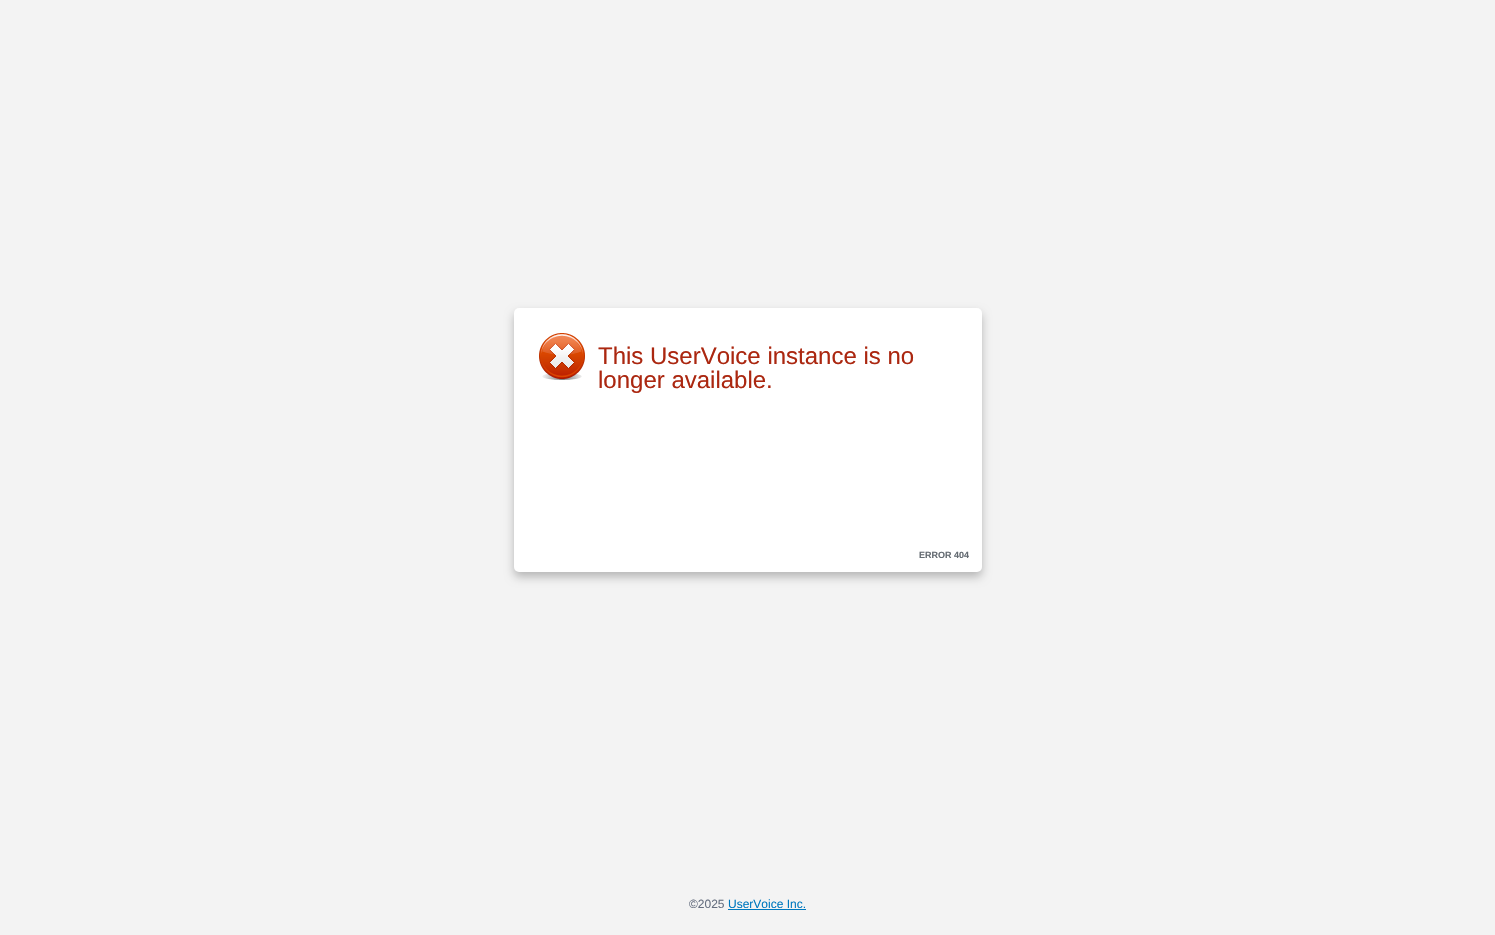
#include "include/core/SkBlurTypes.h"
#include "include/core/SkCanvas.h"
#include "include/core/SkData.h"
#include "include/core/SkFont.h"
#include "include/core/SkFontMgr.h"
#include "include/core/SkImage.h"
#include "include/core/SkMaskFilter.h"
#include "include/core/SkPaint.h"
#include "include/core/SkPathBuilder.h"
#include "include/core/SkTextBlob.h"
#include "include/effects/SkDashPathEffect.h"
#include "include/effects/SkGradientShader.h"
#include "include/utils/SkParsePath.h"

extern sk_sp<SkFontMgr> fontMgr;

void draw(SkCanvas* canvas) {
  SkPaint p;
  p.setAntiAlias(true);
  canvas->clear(SkColorSetRGB(243, 243, 243));
  p.setColor(SkColorSetARGB(64, 0, 0, 0));
  p.setMaskFilter(SkMaskFilter::MakeBlur(kNormal_SkBlurStyle, 5));
  canvas->drawRoundRect(SkRect::MakeLTRB(514, 313, 982, 577), 5, 5, p);
  p.setMaskFilter(nullptr);
  p.setColor(SK_ColorWHITE);
  canvas->drawRoundRect(SkRect::MakeLTRB(514, 308, 982, 572), 5, 5, p);
  canvas->drawImageRect(SkImages::DeferredFromEncodedData(SkData::MakeFromFileName("images/1.png")), SkRect::MakeLTRB(539, 333, 585, 380), SkSamplingOptions());
  p.setColor(SkColorSetRGB(0, 121, 191));
  canvas->drawRect(SkRect::MakeLTRB(728, 909, 806, 910), p);
  SkFont font1(fontMgr->matchFamilyStyle("Liberation Sans", SkFontStyle::Normal()), 24);
  font1.setSubpixel(true);
  p.setColor(SkColorSetRGB(171, 39, 16));
  canvas->drawString("This UserVoice instance is no", 598, 364, font1, p);
  canvas->drawString("longer available.", 598, 388, font1, p);
  SkFont font2(fontMgr->matchFamilyStyle("Liberation Sans", SkFontStyle::Bold()), 9);
  font2.setSubpixel(true);
  p.setColor(SkColorSetRGB(100, 107, 114));
  canvas->drawString("ERROR 404", 919, 558, font2, p);
  SkFont font3(fontMgr->matchFamilyStyle("Liberation Sans", SkFontStyle::Normal()), 12);
  font3.setSubpixel(true);
  p.setColor(SkColorSetRGB(102, 111, 128));
  canvas->drawString("©2025", 689, 908, font3, p);
  p.setColor(SkColorSetRGB(0, 121, 191));
  canvas->drawString("UserVoice Inc.", 728, 908, font3, p);
}
